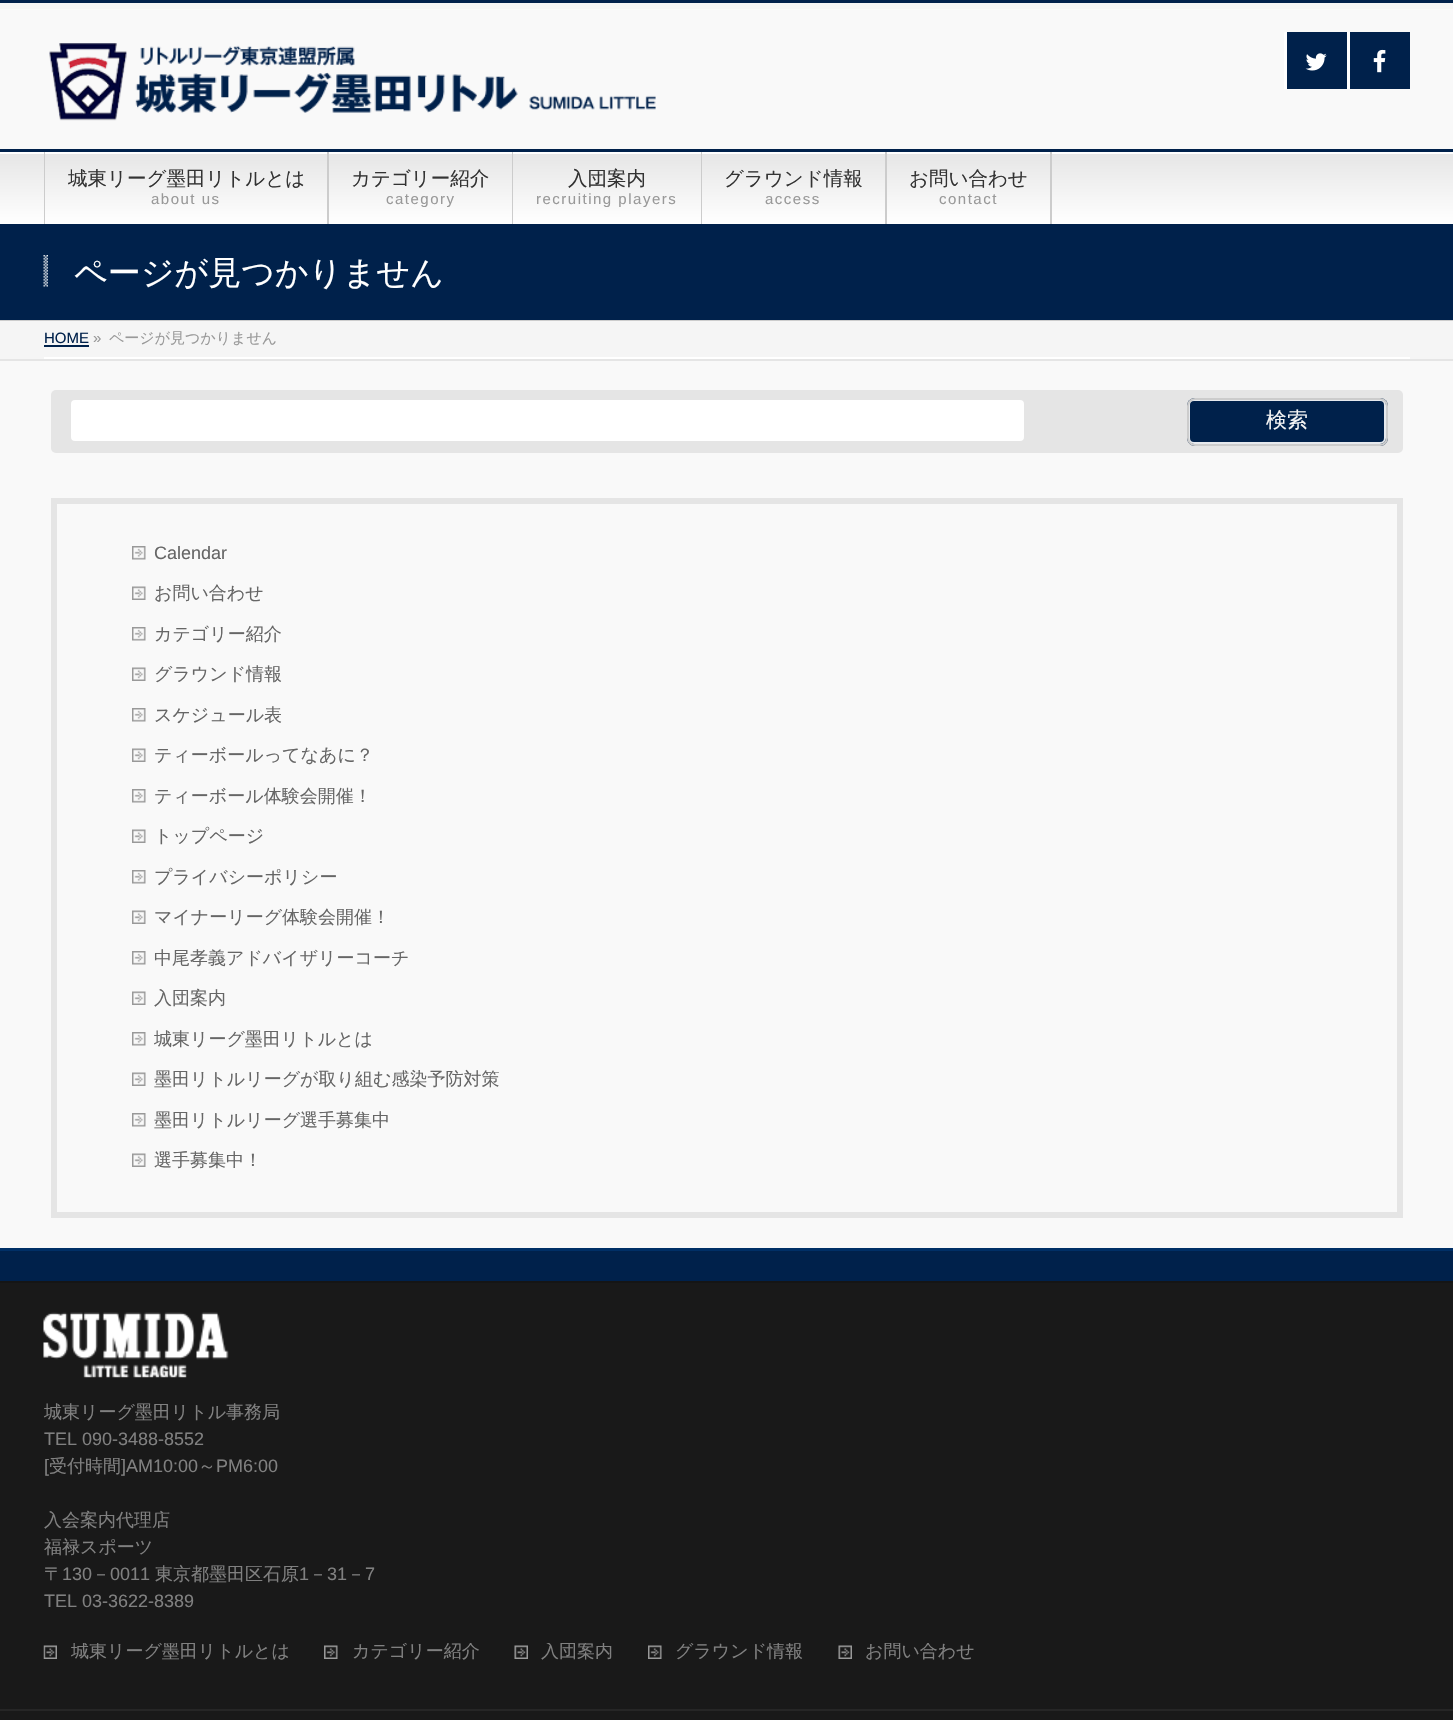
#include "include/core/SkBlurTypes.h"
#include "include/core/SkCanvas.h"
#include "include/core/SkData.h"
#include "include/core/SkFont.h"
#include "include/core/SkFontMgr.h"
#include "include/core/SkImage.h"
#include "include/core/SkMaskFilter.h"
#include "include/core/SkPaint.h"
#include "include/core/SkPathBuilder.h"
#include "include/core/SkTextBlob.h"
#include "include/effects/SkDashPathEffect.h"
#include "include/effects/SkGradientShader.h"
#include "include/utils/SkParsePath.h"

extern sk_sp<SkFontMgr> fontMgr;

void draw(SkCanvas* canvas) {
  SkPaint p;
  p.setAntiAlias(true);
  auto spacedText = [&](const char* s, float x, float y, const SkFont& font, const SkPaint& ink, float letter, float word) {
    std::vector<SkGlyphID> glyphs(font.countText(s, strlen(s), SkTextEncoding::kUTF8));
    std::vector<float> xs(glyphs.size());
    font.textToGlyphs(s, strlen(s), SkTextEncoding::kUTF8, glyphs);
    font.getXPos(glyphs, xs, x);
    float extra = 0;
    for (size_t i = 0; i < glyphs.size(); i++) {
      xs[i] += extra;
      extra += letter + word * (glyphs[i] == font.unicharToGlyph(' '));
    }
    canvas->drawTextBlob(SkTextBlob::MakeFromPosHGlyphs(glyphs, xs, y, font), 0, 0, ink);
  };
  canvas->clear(SkColorSetRGB(249, 249, 249));
  p.setColor(SkColorSetRGB(245, 245, 245));
  canvas->drawRect(SkRect::MakeLTRB(0, 3, 1453, 9), p);
  p.setColor(SkColorSetRGB(0, 33, 75));
  canvas->drawRect(SkRect::MakeLTRB(0, 0, 1453, 3), p);
  canvas->drawImageRect(SkImages::DeferredFromEncodedData(SkData::MakeFromFileName("images/1.png")), SkRect::MakeLTRB(49, 43, 656, 121), SkSamplingOptions());
  canvas->drawRect(SkRect::MakeLTRB(1287, 32, 1347, 89), p);
  p.setColor(SK_ColorWHITE);
  canvas->drawRect(SkRect::MakeLTRB(1284, 32, 1287, 89), p);
  canvas->drawImageRect(SkImages::DeferredFromEncodedData(SkData::MakeFromFileName("images/2.png")), SkRect::MakeLTRB(1305, 53, 1327, 71), SkSamplingOptions());
  p.setColor(SkColorSetRGB(0, 33, 75));
  canvas->drawRect(SkRect::MakeLTRB(1350, 32, 1410, 89), p);
  p.setColor(SK_ColorWHITE);
  canvas->drawRect(SkRect::MakeLTRB(1347, 32, 1350, 89), p);
  canvas->drawImageRect(SkImages::DeferredFromEncodedData(SkData::MakeFromFileName("images/3.png")), SkRect::MakeLTRB(1373, 49, 1386, 73), SkSamplingOptions());
  {
    const SkColor colors[] = {SkColorSetRGB(229, 229, 229), SK_ColorWHITE};
    const float stops[] = {0, 1};
    const SkPoint ends[] = {{727, 151}, {727, 224}};
    p.setShader(SkGradientShader::MakeLinear(ends, colors, stops, 2, SkTileMode::kClamp));
    p.setAlpha(255);
  }
  canvas->drawRect(SkRect::MakeLTRB(0, 154, 1453, 224), p);
  p.setShader(nullptr);
  p.setColor(SK_ColorWHITE);
  canvas->drawRect(SkRect::MakeLTRB(0, 152, 1453, 154), p);
  p.setColor(SkColorSetRGB(0, 33, 75));
  canvas->drawRect(SkRect::MakeLTRB(0, 149, 1453, 152), p);
  p.setColor(SkColorSetRGB(204, 204, 204));
  canvas->drawRect(SkRect::MakeLTRB(44, 152, 45, 224), p);
  canvas->drawRect(SkRect::MakeLTRB(327, 152, 329, 224), p);
  canvas->drawRect(SkRect::MakeLTRB(512, 152, 513, 224), p);
  canvas->drawRect(SkRect::MakeLTRB(701, 152, 702, 224), p);
  canvas->drawRect(SkRect::MakeLTRB(885, 152, 887, 224), p);
  canvas->drawRect(SkRect::MakeLTRB(1050, 152, 1052, 224), p);
  p.setColor(SkColorSetRGB(0, 33, 75));
  canvas->drawRect(SkRect::MakeLTRB(0, 224, 1453, 320), p);
  p.setColor(SkColorSetRGB(204, 204, 204));
  canvas->drawRect(SkRect::MakeLTRB(0, 320, 1453, 321), p);
  canvas->drawImageRect(SkImages::DeferredFromEncodedData(SkData::MakeFromFileName("images/4.png")), SkRect::MakeLTRB(43, 255, 48, 287), SkSamplingOptions());
  p.setColor(SkColorSetRGB(245, 245, 245));
  canvas->drawRect(SkRect::MakeLTRB(0, 321, 1453, 359), p);
  p.setColor(SkColorSetRGB(229, 229, 229));
  canvas->drawRect(SkRect::MakeLTRB(0, 359, 1453, 361), p);
  p.setColor(SK_ColorWHITE);
  canvas->drawRect(SkRect::MakeLTRB(44, 357, 1410, 359), p);
  p.setColor(SkColorSetRGB(0, 33, 75));
  canvas->drawRect(SkRect::MakeLTRB(44, 345, 89, 347), p);
  p.setColor(SkColorSetRGB(229, 229, 229));
  canvas->drawRoundRect(SkRect::MakeLTRB(51, 390, 1403, 453), 5, 5, p);
  p.setColor(SK_ColorWHITE);
  canvas->drawRoundRect(SkRect::MakeLTRB(70, 399, 1025, 442), 5, 5, p);
  p.setStyle(SkPaint::kStroke_Style);
  p.setStrokeWidth(2);
  p.setColor(SkColorSetRGB(229, 229, 229));
  canvas->drawRoundRect(SkRect::MakeLTRB(70, 399, 1025, 442), 5, 5, p);
  p.setStyle(SkPaint::kFill_Style);
  p.setColor(SkColorSetRGB(0, 33, 75));
  canvas->drawRoundRect(SkRect::MakeLTRB(1187, 398, 1388, 446), 8, 8, p);
  p.setStyle(SkPaint::kStroke_Style);
  p.setColor(SkColorSetRGB(230, 233, 237));
  canvas->drawRoundRect(SkRect::MakeLTRB(1189, 400, 1385, 443), 5, 5, p);
  p.setColor(SkColorSetRGB(204, 204, 204));
  canvas->drawRoundRect(SkRect::MakeLTRB(1188, 399, 1387, 445), 7, 7, p);
  p.setStrokeWidth(6);
  p.setColor(SkColorSetRGB(229, 229, 229));
  canvas->drawRect(SkRect::MakeLTRB(54, 501, 1400, 1215), p);
  canvas->drawImageRect(SkImages::DeferredFromEncodedData(SkData::MakeFromFileName("images/5.png")), SkRect::MakeLTRB(132, 546, 146, 560), SkSamplingOptions());
  canvas->drawImageRect(SkImages::DeferredFromEncodedData(SkData::MakeFromFileName("images/6.png")), SkRect::MakeLTRB(132, 586, 146, 600), SkSamplingOptions());
  canvas->drawImageRect(SkImages::DeferredFromEncodedData(SkData::MakeFromFileName("images/5.png")), SkRect::MakeLTRB(132, 627, 146, 641), SkSamplingOptions());
  canvas->drawImageRect(SkImages::DeferredFromEncodedData(SkData::MakeFromFileName("images/6.png")), SkRect::MakeLTRB(132, 667, 146, 681), SkSamplingOptions());
  canvas->drawImageRect(SkImages::DeferredFromEncodedData(SkData::MakeFromFileName("images/5.png")), SkRect::MakeLTRB(132, 708, 146, 722), SkSamplingOptions());
  canvas->drawImageRect(SkImages::DeferredFromEncodedData(SkData::MakeFromFileName("images/6.png")), SkRect::MakeLTRB(132, 748, 146, 762), SkSamplingOptions());
  canvas->drawImageRect(SkImages::DeferredFromEncodedData(SkData::MakeFromFileName("images/5.png")), SkRect::MakeLTRB(132, 789, 146, 803), SkSamplingOptions());
  canvas->drawImageRect(SkImages::DeferredFromEncodedData(SkData::MakeFromFileName("images/6.png")), SkRect::MakeLTRB(132, 829, 146, 843), SkSamplingOptions());
  canvas->drawImageRect(SkImages::DeferredFromEncodedData(SkData::MakeFromFileName("images/5.png")), SkRect::MakeLTRB(132, 870, 146, 884), SkSamplingOptions());
  canvas->drawImageRect(SkImages::DeferredFromEncodedData(SkData::MakeFromFileName("images/6.png")), SkRect::MakeLTRB(132, 910, 146, 924), SkSamplingOptions());
  canvas->drawImageRect(SkImages::DeferredFromEncodedData(SkData::MakeFromFileName("images/5.png")), SkRect::MakeLTRB(132, 951, 146, 965), SkSamplingOptions());
  canvas->drawImageRect(SkImages::DeferredFromEncodedData(SkData::MakeFromFileName("images/6.png")), SkRect::MakeLTRB(132, 991, 146, 1005), SkSamplingOptions());
  canvas->drawImageRect(SkImages::DeferredFromEncodedData(SkData::MakeFromFileName("images/5.png")), SkRect::MakeLTRB(132, 1032, 146, 1046), SkSamplingOptions());
  canvas->drawImageRect(SkImages::DeferredFromEncodedData(SkData::MakeFromFileName("images/6.png")), SkRect::MakeLTRB(132, 1072, 146, 1086), SkSamplingOptions());
  canvas->drawImageRect(SkImages::DeferredFromEncodedData(SkData::MakeFromFileName("images/5.png")), SkRect::MakeLTRB(132, 1113, 146, 1127), SkSamplingOptions());
  canvas->drawImageRect(SkImages::DeferredFromEncodedData(SkData::MakeFromFileName("images/6.png")), SkRect::MakeLTRB(132, 1153, 146, 1167), SkSamplingOptions());
  p.setStyle(SkPaint::kFill_Style);
  p.setColor(SkColorSetRGB(0, 33, 75));
  canvas->drawRect(SkRect::MakeLTRB(0, 1251, 1453, 1281), p);
  p.setColor(SkColorSetRGB(0, 47, 102));
  canvas->drawRect(SkRect::MakeLTRB(0, 1248, 1453, 1251), p);
  p.setColor(SkColorSetRGB(25, 25, 25));
  canvas->drawRect(SkRect::MakeLTRB(0, 1283, 1453, 1709), p);
  p.setColor(SkColorSetRGB(21, 21, 21));
  canvas->drawRect(SkRect::MakeLTRB(0, 1281, 1453, 1283), p);
  canvas->drawImageRect(SkImages::DeferredFromEncodedData(SkData::MakeFromFileName("images/7.png")), SkRect::MakeLTRB(43, 1312, 229, 1378), SkSamplingOptions());
  canvas->drawImageRect(SkImages::DeferredFromEncodedData(SkData::MakeFromFileName("images/8.png")), SkRect::MakeLTRB(43, 1645, 57, 1659), SkSamplingOptions());
  canvas->drawImageRect(SkImages::DeferredFromEncodedData(SkData::MakeFromFileName("images/9.png")), SkRect::MakeLTRB(324, 1645, 338, 1659), SkSamplingOptions());
  canvas->drawImageRect(SkImages::DeferredFromEncodedData(SkData::MakeFromFileName("images/10.png")), SkRect::MakeLTRB(514, 1645, 528, 1659), SkSamplingOptions());
  canvas->drawImageRect(SkImages::DeferredFromEncodedData(SkData::MakeFromFileName("images/11.png")), SkRect::MakeLTRB(648, 1645, 662, 1659), SkSamplingOptions());
  canvas->drawImageRect(SkImages::DeferredFromEncodedData(SkData::MakeFromFileName("images/12.png")), SkRect::MakeLTRB(838, 1645, 852, 1659), SkSamplingOptions());
  p.setColor(SkColorSetRGB(25, 25, 25));
  canvas->drawRect(SkRect::MakeLTRB(0, 1711, 1453, 1720), p);
  p.setColor(SkColorSetRGB(38, 38, 38));
  canvas->drawRect(SkRect::MakeLTRB(0, 1709, 1453, 1711), p);
  SkFont font1(fontMgr->matchFamilyStyle("WenQuanYi Zen Hei", SkFontStyle(500, SkFontStyle::kNormal_Width, SkFontStyle::kUpright_Slant)), 19.5f);
  font1.setSubpixel(true);
  p.setColor(SkColorSetRGB(51, 51, 51));
  canvas->drawString("城東リーグ墨田リトルとは", 68, 185, font1, p);
  SkFont font2(fontMgr->matchFamilyStyle("Liberation Sans", SkFontStyle::Normal()), 15);
  font2.setSubpixel(true);
  p.setColor(SkColorSetRGB(153, 153, 153));
  spacedText("about us", 151, 204, font2, p, 1.5f, 0);
  p.setColor(SkColorSetRGB(51, 51, 51));
  canvas->drawString("カテゴリー紹介", 351, 185, font1, p);
  p.setColor(SkColorSetRGB(153, 153, 153));
  spacedText("category", 386, 204, font2, p, 1.5f, 0);
  p.setColor(SkColorSetRGB(51, 51, 51));
  canvas->drawString("入団案内", 568, 185, font1, p);
  p.setColor(SkColorSetRGB(153, 153, 153));
  spacedText("recruiting players", 536, 204, font2, p, 1.5f, 0);
  p.setColor(SkColorSetRGB(51, 51, 51));
  canvas->drawString("グラウンド情報", 724, 185, font1, p);
  p.setColor(SkColorSetRGB(153, 153, 153));
  spacedText("access", 765, 204, font2, p, 1.5f, 0);
  p.setColor(SkColorSetRGB(51, 51, 51));
  canvas->drawString("お問い合わせ", 909, 185, font1, p);
  p.setColor(SkColorSetRGB(153, 153, 153));
  spacedText("contact", 939, 204, font2, p, 1.5f, 0);
  SkFont font3(fontMgr->matchFamilyStyle("WenQuanYi Zen Hei", SkFontStyle(500, SkFontStyle::kNormal_Width, SkFontStyle::kUpright_Slant)), 33);
  font3.setSubpixel(true);
  p.setColor(SK_ColorWHITE);
  canvas->drawString("ページが見つかりません", 74, 284, font3, p);
  p.setColor(SkColorSetRGB(0, 33, 75));
  canvas->drawString("HOME", 44, 343, font2, p);
  p.setColor(SkColorSetRGB(153, 153, 153));
  canvas->drawString("»", 93, 343, font2, p);
  SkFont font4(fontMgr->matchFamilyStyle("WenQuanYi Zen Hei", SkFontStyle(500, SkFontStyle::kNormal_Width, SkFontStyle::kUpright_Slant)), 15);
  font4.setSubpixel(true);
  canvas->drawString("ページが見つかりません", 109, 343, font4, p);
  SkFont font5(fontMgr->matchFamilyStyle("WenQuanYi Zen Hei", SkFontStyle(500, SkFontStyle::kNormal_Width, SkFontStyle::kUpright_Slant)), 21);
  font5.setSubpixel(true);
  p.setColor(SkColorSetRGB(245, 245, 245));
  canvas->drawString("検索", 1266, 427, font5, p);
  SkFont font6(fontMgr->matchFamilyStyle("Liberation Sans", SkFontStyle::Normal()), 18);
  font6.setSubpixel(true);
  p.setColor(SkColorSetRGB(102, 102, 102));
  canvas->drawString("Calendar", 154, 559, font6, p);
  SkFont font7(fontMgr->matchFamilyStyle("WenQuanYi Zen Hei", SkFontStyle(500, SkFontStyle::kNormal_Width, SkFontStyle::kUpright_Slant)), 18);
  font7.setSubpixel(true);
  canvas->drawString("お問い合わせ", 154, 599, font7, p);
  canvas->drawString("カテゴリー紹介", 154, 640, font7, p);
  canvas->drawString("グラウンド情報", 154, 680, font7, p);
  canvas->drawString("スケジュール表", 154, 721, font7, p);
  canvas->drawString("ティーボールってなあに？", 154, 761, font7, p);
  canvas->drawString("ティーボール体験会開催！", 154, 802, font7, p);
  canvas->drawString("トップページ", 154, 842, font7, p);
  canvas->drawString("プライバシーポリシー", 154, 883, font7, p);
  canvas->drawString("マイナーリーグ体験会開催！", 154, 923, font7, p);
  canvas->drawString("中尾孝義アドバイザリーコーチ", 154, 964, font7, p);
  canvas->drawString("入団案内", 154, 1004, font7, p);
  canvas->drawString("城東リーグ墨田リトルとは", 154, 1045, font7, p);
  canvas->drawString("墨田リトルリーグが取り組む感染予防対策", 154, 1085, font7, p);
  canvas->drawString("墨田リトルリーグ選手募集中", 154, 1126, font7, p);
  canvas->drawString("選手募集中！", 154, 1166, font7, p);
  p.setColor(SkColorSetRGB(128, 128, 128));
  canvas->drawString("城東リーグ墨田リトル事務局", 44, 1418, font7, p);
  canvas->drawString("TEL 090-3488-8552", 44, 1445, font6, p);
  canvas->drawString("[", 44, 1472, font6, p);
  canvas->drawString("受付時間", 49, 1472, font7, p);
  canvas->drawString("]AM10:00", 121, 1472, font6, p);
  canvas->drawString("～", 198, 1472, font7, p);
  canvas->drawString("PM6:00", 216, 1472, font6, p);
  canvas->drawString("入会案内代理店", 44, 1526, font7, p);
  canvas->drawString("福禄スポーツ", 44, 1553, font7, p);
  canvas->drawString("〒", 44, 1580, font7, p);
  canvas->drawString("130", 62, 1580, font6, p);
  canvas->drawString("－", 92, 1580, font7, p);
  canvas->drawString("0011", 110, 1580, font6, p);
  canvas->drawString("東京都墨田区石原", 155, 1580, font7, p);
  canvas->drawString("1", 299, 1580, font6, p);
  canvas->drawString("－", 309, 1580, font7, p);
  canvas->drawString("31", 327, 1580, font6, p);
  canvas->drawString("－", 347, 1580, font7, p);
  canvas->drawString("7", 365, 1580, font6, p);
  canvas->drawString("TEL 03-3622-8389", 44, 1607, font6, p);
  canvas->save();
  canvas->clipRect(SkRect::MakeLTRB(44, 1643, 320, 1670));
  canvas->drawString("城東リーグ墨田リトルとは", 71, 1657, font7, p);
  canvas->restore();
  canvas->save();
  canvas->clipRect(SkRect::MakeLTRB(324, 1643, 510, 1670));
  canvas->drawString("カテゴリー紹介", 352, 1657, font7, p);
  canvas->restore();
  canvas->save();
  canvas->clipRect(SkRect::MakeLTRB(515, 1643, 644, 1670));
  canvas->drawString("入団案内", 541, 1657, font7, p);
  canvas->restore();
  canvas->save();
  canvas->clipRect(SkRect::MakeLTRB(648, 1643, 834, 1670));
  canvas->drawString("グラウンド情報", 675, 1657, font7, p);
  canvas->restore();
  canvas->save();
  canvas->clipRect(SkRect::MakeLTRB(839, 1643, 1005, 1670));
  canvas->drawString("お問い合わせ", 865, 1657, font7, p);
  canvas->restore();
}
